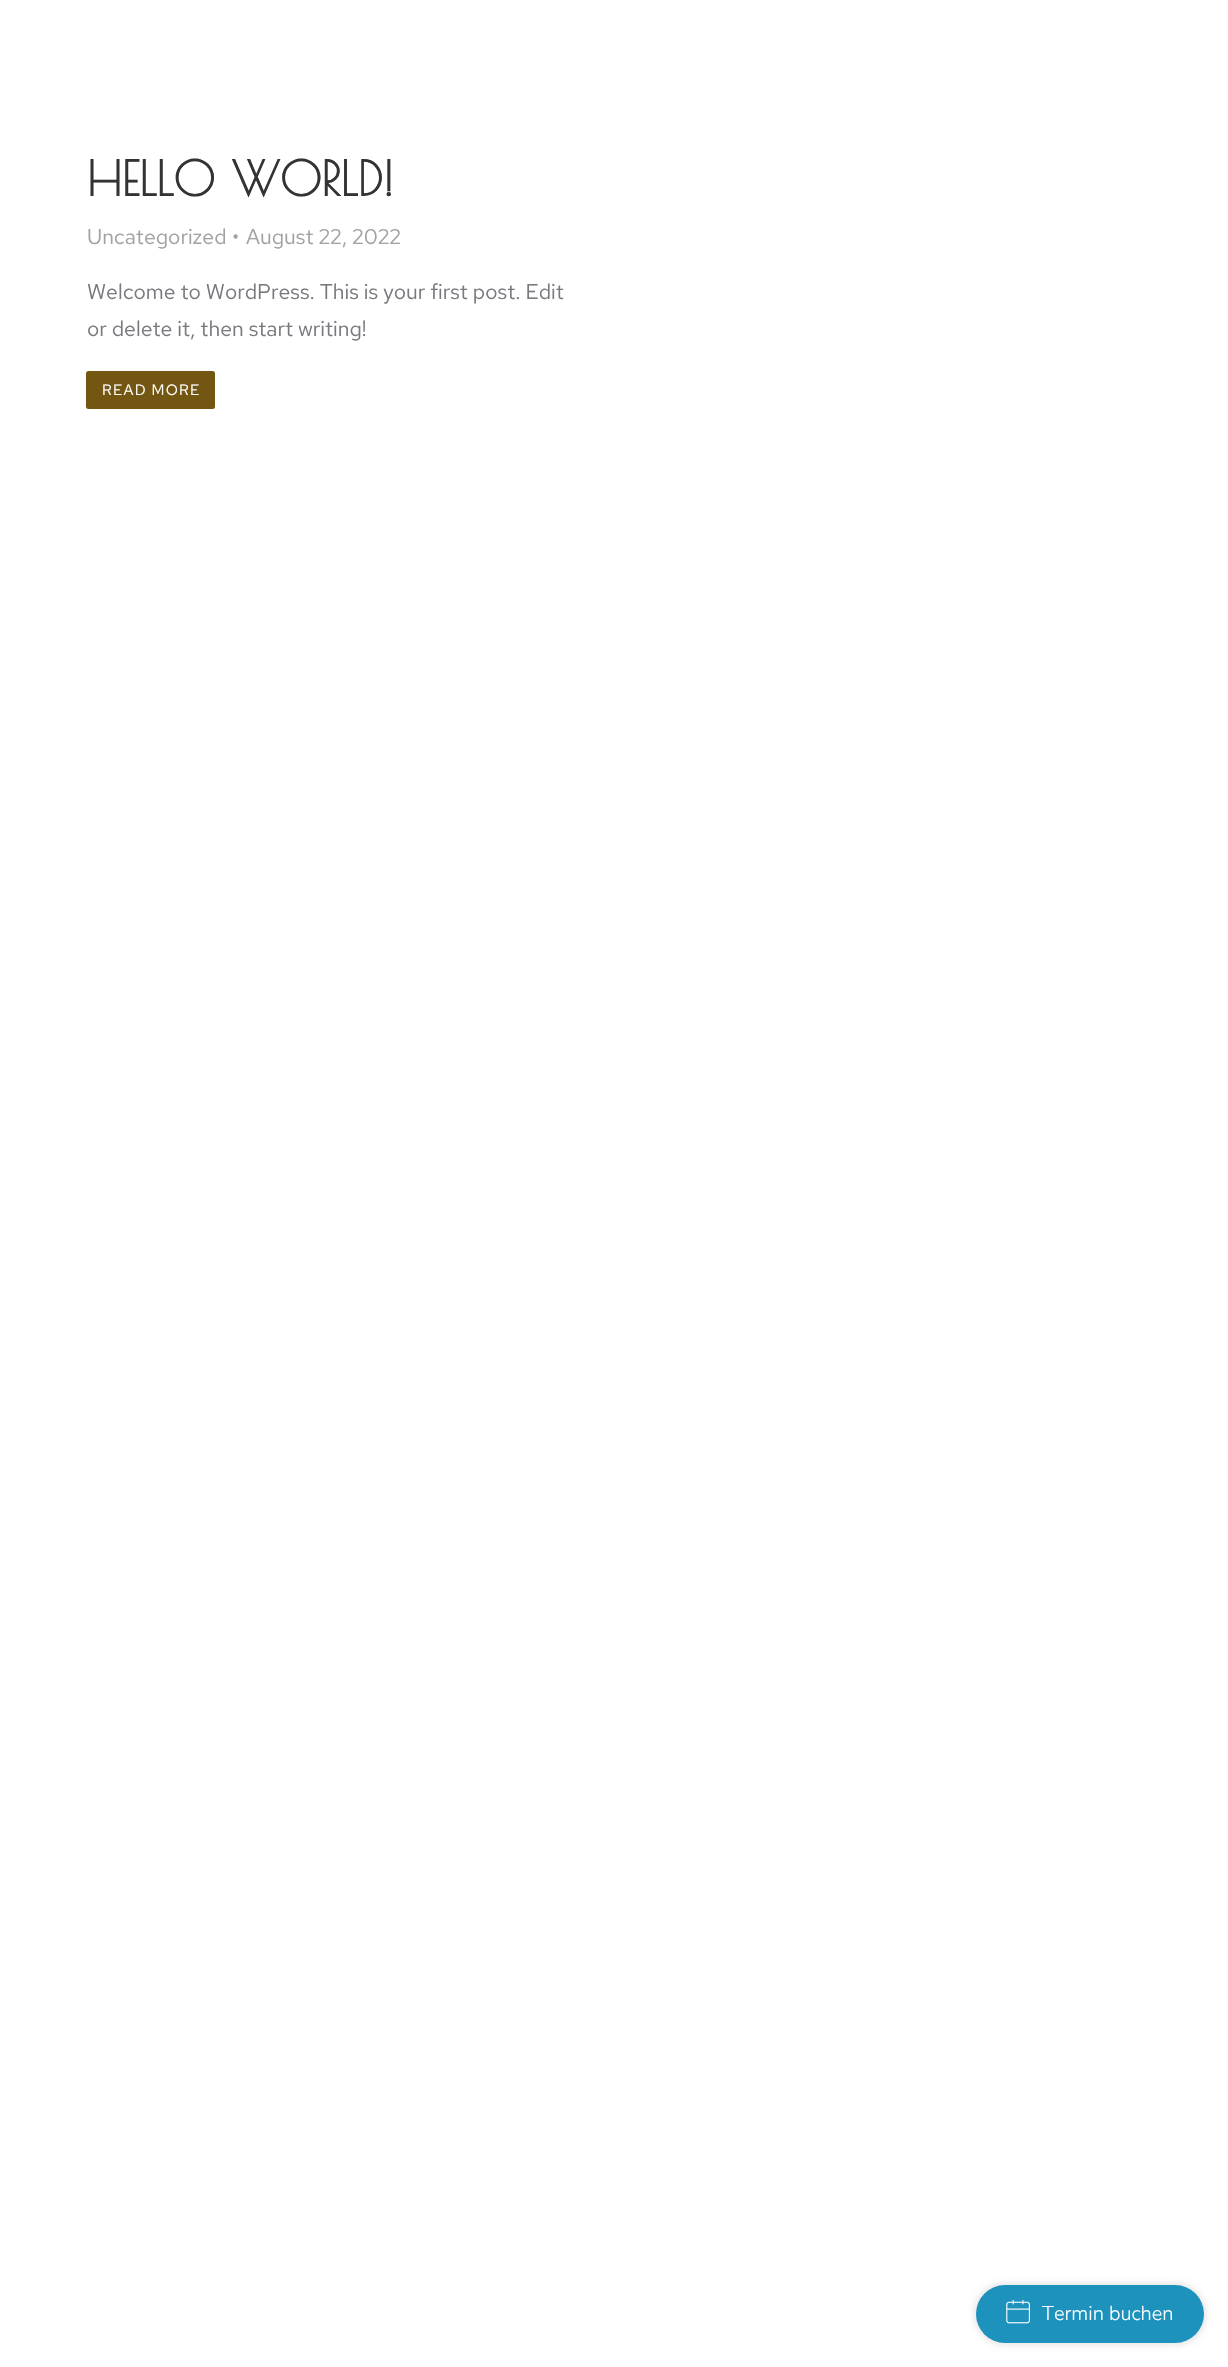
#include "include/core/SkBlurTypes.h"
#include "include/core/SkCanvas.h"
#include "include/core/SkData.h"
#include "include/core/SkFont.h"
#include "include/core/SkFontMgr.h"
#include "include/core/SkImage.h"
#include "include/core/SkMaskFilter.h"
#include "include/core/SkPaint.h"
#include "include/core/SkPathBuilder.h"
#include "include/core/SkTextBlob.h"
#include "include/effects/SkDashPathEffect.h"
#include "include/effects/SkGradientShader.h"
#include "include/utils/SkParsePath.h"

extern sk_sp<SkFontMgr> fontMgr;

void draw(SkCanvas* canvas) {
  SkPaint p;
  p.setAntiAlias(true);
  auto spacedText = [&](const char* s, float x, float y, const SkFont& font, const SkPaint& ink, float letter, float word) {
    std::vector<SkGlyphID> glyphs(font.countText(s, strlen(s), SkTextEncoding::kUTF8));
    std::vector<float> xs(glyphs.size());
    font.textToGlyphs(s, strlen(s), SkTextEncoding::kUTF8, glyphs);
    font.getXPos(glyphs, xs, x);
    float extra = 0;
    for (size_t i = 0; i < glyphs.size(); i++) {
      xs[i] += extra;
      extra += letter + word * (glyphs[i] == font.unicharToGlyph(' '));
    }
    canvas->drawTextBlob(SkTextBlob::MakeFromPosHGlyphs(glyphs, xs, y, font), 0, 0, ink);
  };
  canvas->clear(SK_ColorWHITE);
  p.setColor(SkColorSetRGB(115, 86, 17));
  canvas->drawRoundRect(SkRect::MakeLTRB(86, 371, 215, 409), 2.5f, 2.5f, p);
  p.setColor(SkColorSetARGB(26, 0, 0, 0));
  p.setMaskFilter(SkMaskFilter::MakeBlur(kNormal_SkBlurStyle, 3));
  canvas->drawRoundRect(SkRect::MakeLTRB(974, 2283, 1206, 2345), 31, 31, p);
  p.setMaskFilter(nullptr);
  p.setColor(SkColorSetRGB(28, 146, 189));
  canvas->drawRoundRect(SkRect::MakeLTRB(976, 2285, 1204, 2343), 29, 29, p);
  canvas->drawImageRect(SkImages::DeferredFromEncodedData(SkData::MakeFromFileName("images/1.png")), SkRect::MakeLTRB(1006, 2300, 1030, 2324), SkSamplingOptions());
  SkFont font1(fontMgr->matchFamilyStyle("Poiret One", SkFontStyle::Bold()), 47.5f);
  font1.setSubpixel(true);
  p.setColor(SkColorSetRGB(51, 51, 51));
  canvas->drawString("HELLO WORLD!", 87, 196, font1, p);
  SkFont font2(fontMgr->matchFamilyStyle("Red Hat Text", SkFontStyle::Normal()), 21.25f);
  font2.setSubpixel(true);
  p.setColor(SkColorSetRGB(160, 162, 165));
  canvas->drawString("Uncategorized", 87, 244, font2, p);
  canvas->drawString("•", 232, 244, font2, p);
  canvas->drawString("August 22, 2022", 246, 244, font2, p);
  p.setColor(SkColorSetRGB(121, 122, 127));
  canvas->drawString("Welcome to WordPress. This is your first post. Edit", 87, 299, font2, p);
  canvas->drawString("or delete it, then start writing!", 87, 336, font2, p);
  SkFont font3(fontMgr->matchFamilyStyle("Red Hat Text", SkFontStyle::Normal()), 15);
  font3.setSubpixel(true);
  p.setColor(SK_ColorWHITE);
  spacedText("READ MORE", 102, 395, font3, p, 1.25f, 0);
  SkFont font4(fontMgr->matchFamilyStyle("Nunito", SkFontStyle(300, SkFontStyle::kNormal_Width, SkFontStyle::kUpright_Slant)), 20);
  font4.setSubpixel(true);
  canvas->drawString("Termin buchen", 1042, 2320, font4, p);
}
